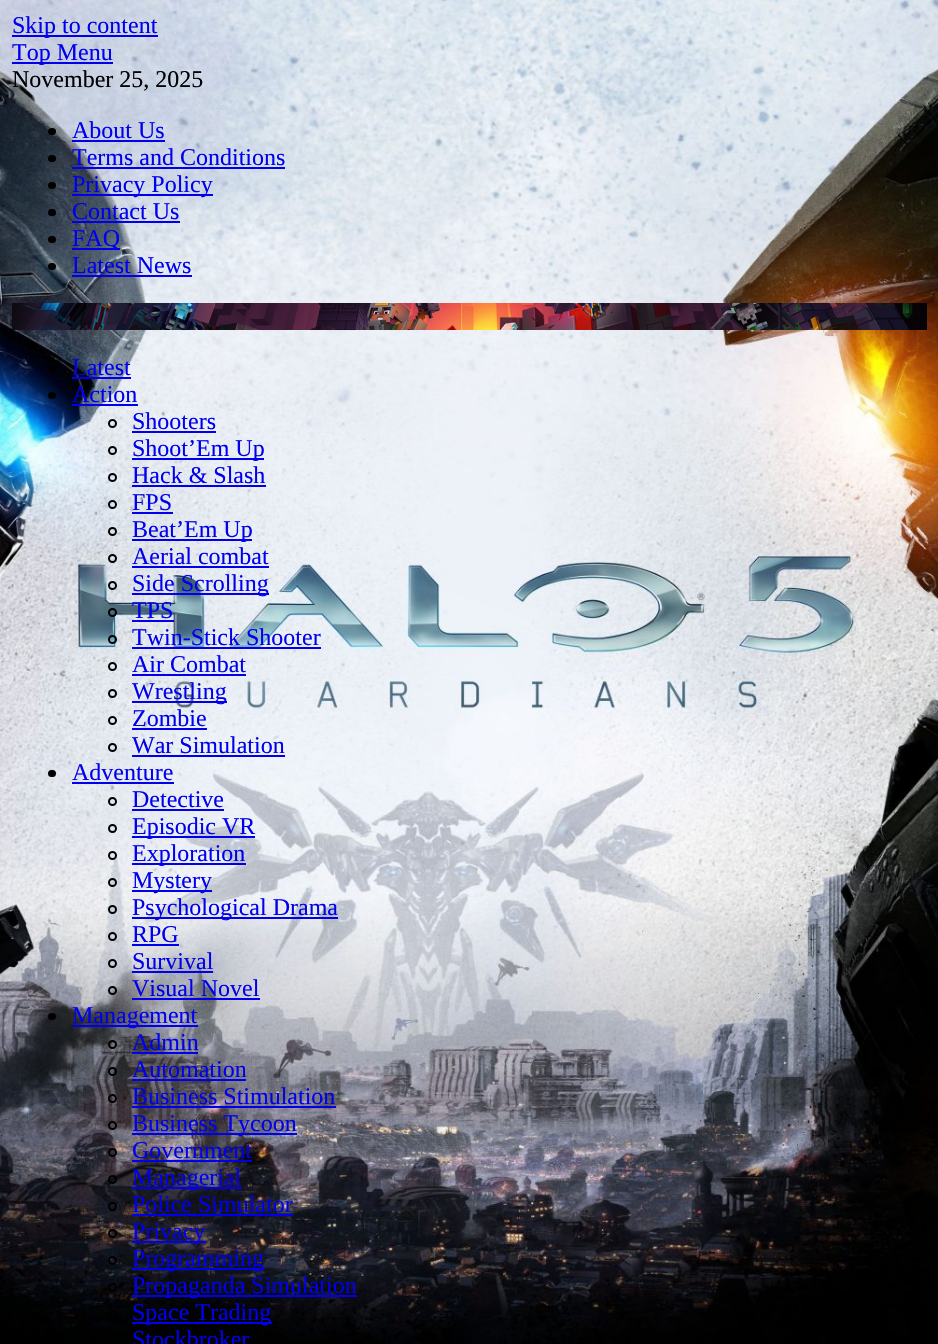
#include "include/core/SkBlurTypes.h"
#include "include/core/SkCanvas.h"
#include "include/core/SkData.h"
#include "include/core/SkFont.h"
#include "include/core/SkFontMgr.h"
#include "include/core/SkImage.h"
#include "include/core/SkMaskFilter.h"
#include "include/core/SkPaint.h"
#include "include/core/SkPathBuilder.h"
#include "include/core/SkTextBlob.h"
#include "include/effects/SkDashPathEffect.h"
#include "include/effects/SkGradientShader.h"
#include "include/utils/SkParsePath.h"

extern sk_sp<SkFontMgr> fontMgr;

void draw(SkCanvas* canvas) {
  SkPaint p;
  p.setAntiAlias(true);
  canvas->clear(SK_ColorWHITE);
  canvas->drawImageRect(SkImages::DeferredFromEncodedData(SkData::MakeFromFileName("images/1.png")), SkRect::MakeLTRB(0, 0, 938, 1344), SkSamplingOptions());
  p.setColor(SkColorSetRGB(0, 0, 238));
  canvas->drawRect(SkRect::MakeLTRB(12, 35, 158, 37), p);
  canvas->drawRect(SkRect::MakeLTRB(12, 62, 113, 64), p);
  p.setColor(SK_ColorBLACK);
  canvas->drawRoundRect(SkRect::MakeLTRB(48, 128, 56, 135), 3.5f, 3.5f, p);
  p.setColor(SkColorSetRGB(0, 0, 238));
  canvas->drawRect(SkRect::MakeLTRB(72, 140, 165, 142), p);
  p.setColor(SK_ColorBLACK);
  canvas->drawRoundRect(SkRect::MakeLTRB(48, 155, 56, 162), 3.5f, 3.5f, p);
  p.setColor(SkColorSetRGB(0, 0, 238));
  canvas->drawRect(SkRect::MakeLTRB(72, 167, 285, 169), p);
  p.setColor(SK_ColorBLACK);
  canvas->drawRoundRect(SkRect::MakeLTRB(48, 182, 56, 189), 3.5f, 3.5f, p);
  p.setColor(SkColorSetRGB(0, 0, 238));
  canvas->drawRect(SkRect::MakeLTRB(72, 194, 213, 196), p);
  p.setColor(SK_ColorBLACK);
  canvas->drawRoundRect(SkRect::MakeLTRB(48, 209, 56, 216), 3.5f, 3.5f, p);
  p.setColor(SkColorSetRGB(0, 0, 238));
  canvas->drawRect(SkRect::MakeLTRB(72, 221, 180, 223), p);
  p.setColor(SK_ColorBLACK);
  canvas->drawRoundRect(SkRect::MakeLTRB(48, 236, 56, 243), 3.5f, 3.5f, p);
  p.setColor(SkColorSetRGB(0, 0, 238));
  canvas->drawRect(SkRect::MakeLTRB(72, 248, 120, 250), p);
  p.setColor(SK_ColorBLACK);
  canvas->drawRoundRect(SkRect::MakeLTRB(48, 263, 56, 270), 3.5f, 3.5f, p);
  p.setColor(SkColorSetRGB(0, 0, 238));
  canvas->drawRect(SkRect::MakeLTRB(72, 275, 192, 277), p);
  canvas->drawImageRect(SkImages::DeferredFromEncodedData(SkData::MakeFromFileName("images/2.png")), SkRect::MakeLTRB(12, 303, 927, 330), SkSamplingOptions());
  p.setColor(SK_ColorBLACK);
  canvas->drawRoundRect(SkRect::MakeLTRB(48, 365, 56, 372), 3.5f, 3.5f, p);
  p.setColor(SkColorSetRGB(0, 0, 238));
  canvas->drawRect(SkRect::MakeLTRB(72, 377, 131, 379), p);
  p.setColor(SK_ColorBLACK);
  canvas->drawRoundRect(SkRect::MakeLTRB(48, 392, 56, 399), 3.5f, 3.5f, p);
  p.setColor(SkColorSetRGB(0, 0, 238));
  canvas->drawRect(SkRect::MakeLTRB(72, 404, 138, 406), p);
  p.setStyle(SkPaint::kStroke_Style);
  p.setStrokeWidth(2);
  p.setColor(SK_ColorBLACK);
  canvas->drawCircle(112.5f, 423.5f, 3.5f, p);
  p.setStyle(SkPaint::kFill_Style);
  p.setColor(SkColorSetRGB(0, 0, 238));
  canvas->drawRect(SkRect::MakeLTRB(132, 431, 216, 433), p);
  p.setStyle(SkPaint::kStroke_Style);
  p.setColor(SK_ColorBLACK);
  canvas->drawCircle(112.5f, 450.5f, 3.5f, p);
  p.setStyle(SkPaint::kFill_Style);
  p.setColor(SkColorSetRGB(0, 0, 238));
  canvas->drawRect(SkRect::MakeLTRB(132, 458, 264, 460), p);
  p.setStyle(SkPaint::kStroke_Style);
  p.setColor(SK_ColorBLACK);
  canvas->drawCircle(112.5f, 477.5f, 3.5f, p);
  p.setStyle(SkPaint::kFill_Style);
  p.setColor(SkColorSetRGB(0, 0, 238));
  canvas->drawRect(SkRect::MakeLTRB(132, 485, 266, 487), p);
  p.setStyle(SkPaint::kStroke_Style);
  p.setColor(SK_ColorBLACK);
  canvas->drawCircle(112.5f, 504.5f, 3.5f, p);
  p.setStyle(SkPaint::kFill_Style);
  p.setColor(SkColorSetRGB(0, 0, 238));
  canvas->drawRect(SkRect::MakeLTRB(132, 512, 173, 514), p);
  p.setStyle(SkPaint::kStroke_Style);
  p.setColor(SK_ColorBLACK);
  canvas->drawCircle(112.5f, 531.5f, 3.5f, p);
  p.setStyle(SkPaint::kFill_Style);
  p.setColor(SkColorSetRGB(0, 0, 238));
  canvas->drawRect(SkRect::MakeLTRB(132, 539, 252, 541), p);
  p.setStyle(SkPaint::kStroke_Style);
  p.setColor(SK_ColorBLACK);
  canvas->drawCircle(112.5f, 558.5f, 3.5f, p);
  p.setStyle(SkPaint::kFill_Style);
  p.setColor(SkColorSetRGB(0, 0, 238));
  canvas->drawRect(SkRect::MakeLTRB(132, 566, 269, 568), p);
  p.setStyle(SkPaint::kStroke_Style);
  p.setColor(SK_ColorBLACK);
  canvas->drawCircle(112.5f, 585.5f, 3.5f, p);
  p.setStyle(SkPaint::kFill_Style);
  p.setColor(SkColorSetRGB(0, 0, 238));
  canvas->drawRect(SkRect::MakeLTRB(132, 593, 269, 595), p);
  p.setStyle(SkPaint::kStroke_Style);
  p.setColor(SK_ColorBLACK);
  canvas->drawCircle(112.5f, 612.5f, 3.5f, p);
  p.setStyle(SkPaint::kFill_Style);
  p.setColor(SkColorSetRGB(0, 0, 238));
  canvas->drawRect(SkRect::MakeLTRB(132, 620, 174, 622), p);
  p.setStyle(SkPaint::kStroke_Style);
  p.setColor(SK_ColorBLACK);
  canvas->drawCircle(112.5f, 639.5f, 3.5f, p);
  p.setStyle(SkPaint::kFill_Style);
  p.setColor(SkColorSetRGB(0, 0, 238));
  canvas->drawRect(SkRect::MakeLTRB(132, 647, 321, 649), p);
  p.setStyle(SkPaint::kStroke_Style);
  p.setColor(SK_ColorBLACK);
  canvas->drawCircle(112.5f, 666.5f, 3.5f, p);
  p.setStyle(SkPaint::kFill_Style);
  p.setColor(SkColorSetRGB(0, 0, 238));
  canvas->drawRect(SkRect::MakeLTRB(132, 674, 246, 676), p);
  p.setStyle(SkPaint::kStroke_Style);
  p.setColor(SK_ColorBLACK);
  canvas->drawCircle(112.5f, 693.5f, 3.5f, p);
  p.setStyle(SkPaint::kFill_Style);
  p.setColor(SkColorSetRGB(0, 0, 238));
  canvas->drawRect(SkRect::MakeLTRB(132, 701, 227, 703), p);
  p.setStyle(SkPaint::kStroke_Style);
  p.setColor(SK_ColorBLACK);
  canvas->drawCircle(112.5f, 720.5f, 3.5f, p);
  p.setStyle(SkPaint::kFill_Style);
  p.setColor(SkColorSetRGB(0, 0, 238));
  canvas->drawRect(SkRect::MakeLTRB(132, 728, 207, 730), p);
  p.setStyle(SkPaint::kStroke_Style);
  p.setColor(SK_ColorBLACK);
  canvas->drawCircle(112.5f, 747.5f, 3.5f, p);
  p.setStyle(SkPaint::kFill_Style);
  p.setColor(SkColorSetRGB(0, 0, 238));
  canvas->drawRect(SkRect::MakeLTRB(132, 755, 285, 757), p);
  p.setColor(SK_ColorBLACK);
  canvas->drawRoundRect(SkRect::MakeLTRB(48, 770, 56, 777), 3.5f, 3.5f, p);
  p.setColor(SkColorSetRGB(0, 0, 238));
  canvas->drawRect(SkRect::MakeLTRB(72, 782, 174, 784), p);
  p.setStyle(SkPaint::kStroke_Style);
  p.setColor(SK_ColorBLACK);
  canvas->drawCircle(112.5f, 801.5f, 3.5f, p);
  p.setStyle(SkPaint::kFill_Style);
  p.setColor(SkColorSetRGB(0, 0, 238));
  canvas->drawRect(SkRect::MakeLTRB(132, 809, 224, 811), p);
  p.setStyle(SkPaint::kStroke_Style);
  p.setColor(SK_ColorBLACK);
  canvas->drawCircle(112.5f, 828.5f, 3.5f, p);
  p.setStyle(SkPaint::kFill_Style);
  p.setColor(SkColorSetRGB(0, 0, 238));
  canvas->drawRect(SkRect::MakeLTRB(132, 836, 255, 838), p);
  p.setStyle(SkPaint::kStroke_Style);
  p.setColor(SK_ColorBLACK);
  canvas->drawCircle(112.5f, 855.5f, 3.5f, p);
  p.setStyle(SkPaint::kFill_Style);
  p.setColor(SkColorSetRGB(0, 0, 238));
  canvas->drawRect(SkRect::MakeLTRB(132, 863, 246, 865), p);
  p.setStyle(SkPaint::kStroke_Style);
  p.setColor(SK_ColorBLACK);
  canvas->drawCircle(112.5f, 882.5f, 3.5f, p);
  p.setStyle(SkPaint::kFill_Style);
  p.setColor(SkColorSetRGB(0, 0, 238));
  canvas->drawRect(SkRect::MakeLTRB(132, 890, 212, 892), p);
  p.setStyle(SkPaint::kStroke_Style);
  p.setColor(SK_ColorBLACK);
  canvas->drawCircle(112.5f, 909.5f, 3.5f, p);
  p.setStyle(SkPaint::kFill_Style);
  p.setColor(SkColorSetRGB(0, 0, 238));
  canvas->drawRect(SkRect::MakeLTRB(132, 917, 338, 919), p);
  p.setStyle(SkPaint::kStroke_Style);
  p.setColor(SK_ColorBLACK);
  canvas->drawCircle(112.5f, 936.5f, 3.5f, p);
  p.setStyle(SkPaint::kFill_Style);
  p.setColor(SkColorSetRGB(0, 0, 238));
  canvas->drawRect(SkRect::MakeLTRB(132, 944, 179, 946), p);
  p.setStyle(SkPaint::kStroke_Style);
  p.setColor(SK_ColorBLACK);
  canvas->drawCircle(112.5f, 963.5f, 3.5f, p);
  p.setStyle(SkPaint::kFill_Style);
  p.setColor(SkColorSetRGB(0, 0, 238));
  canvas->drawRect(SkRect::MakeLTRB(132, 971, 213, 973), p);
  p.setStyle(SkPaint::kStroke_Style);
  p.setColor(SK_ColorBLACK);
  canvas->drawCircle(112.5f, 990.5f, 3.5f, p);
  p.setStyle(SkPaint::kFill_Style);
  p.setColor(SkColorSetRGB(0, 0, 238));
  canvas->drawRect(SkRect::MakeLTRB(132, 998, 260, 1000), p);
  p.setColor(SK_ColorBLACK);
  canvas->drawRoundRect(SkRect::MakeLTRB(48, 1013, 56, 1020), 3.5f, 3.5f, p);
  p.setColor(SkColorSetRGB(0, 0, 238));
  canvas->drawRect(SkRect::MakeLTRB(72, 1025, 198, 1027), p);
  p.setStyle(SkPaint::kStroke_Style);
  p.setColor(SK_ColorBLACK);
  canvas->drawCircle(112.5f, 1044.5f, 3.5f, p);
  p.setStyle(SkPaint::kFill_Style);
  p.setColor(SkColorSetRGB(0, 0, 238));
  canvas->drawRect(SkRect::MakeLTRB(132, 1052, 198, 1054), p);
  p.setStyle(SkPaint::kStroke_Style);
  p.setColor(SK_ColorBLACK);
  canvas->drawCircle(112.5f, 1071.5f, 3.5f, p);
  p.setStyle(SkPaint::kFill_Style);
  p.setColor(SkColorSetRGB(0, 0, 238));
  canvas->drawRect(SkRect::MakeLTRB(132, 1079, 246, 1081), p);
  p.setStyle(SkPaint::kStroke_Style);
  p.setColor(SK_ColorBLACK);
  canvas->drawCircle(112.5f, 1098.5f, 3.5f, p);
  p.setStyle(SkPaint::kFill_Style);
  p.setColor(SkColorSetRGB(0, 0, 238));
  canvas->drawRect(SkRect::MakeLTRB(132, 1106, 336, 1108), p);
  p.setStyle(SkPaint::kStroke_Style);
  p.setColor(SK_ColorBLACK);
  canvas->drawCircle(112.5f, 1125.5f, 3.5f, p);
  p.setStyle(SkPaint::kFill_Style);
  p.setColor(SkColorSetRGB(0, 0, 238));
  canvas->drawRect(SkRect::MakeLTRB(132, 1133, 297, 1135), p);
  p.setStyle(SkPaint::kStroke_Style);
  p.setColor(SK_ColorBLACK);
  canvas->drawCircle(112.5f, 1152.5f, 3.5f, p);
  p.setStyle(SkPaint::kFill_Style);
  p.setColor(SkColorSetRGB(0, 0, 238));
  canvas->drawRect(SkRect::MakeLTRB(132, 1160, 252, 1162), p);
  p.setStyle(SkPaint::kStroke_Style);
  p.setColor(SK_ColorBLACK);
  canvas->drawCircle(112.5f, 1179.5f, 3.5f, p);
  p.setStyle(SkPaint::kFill_Style);
  p.setColor(SkColorSetRGB(0, 0, 238));
  canvas->drawRect(SkRect::MakeLTRB(132, 1187, 242, 1189), p);
  p.setStyle(SkPaint::kStroke_Style);
  p.setColor(SK_ColorBLACK);
  canvas->drawCircle(112.5f, 1206.5f, 3.5f, p);
  p.setStyle(SkPaint::kFill_Style);
  p.setColor(SkColorSetRGB(0, 0, 238));
  canvas->drawRect(SkRect::MakeLTRB(132, 1214, 293, 1216), p);
  p.setStyle(SkPaint::kStroke_Style);
  p.setColor(SK_ColorBLACK);
  canvas->drawCircle(112.5f, 1233.5f, 3.5f, p);
  p.setStyle(SkPaint::kFill_Style);
  p.setColor(SkColorSetRGB(0, 0, 238));
  canvas->drawRect(SkRect::MakeLTRB(132, 1241, 206, 1243), p);
  p.setStyle(SkPaint::kStroke_Style);
  p.setColor(SK_ColorBLACK);
  canvas->drawCircle(112.5f, 1260.5f, 3.5f, p);
  p.setStyle(SkPaint::kFill_Style);
  p.setColor(SkColorSetRGB(0, 0, 238));
  canvas->drawRect(SkRect::MakeLTRB(132, 1268, 264, 1270), p);
  p.setStyle(SkPaint::kStroke_Style);
  p.setColor(SK_ColorBLACK);
  canvas->drawCircle(112.5f, 1287.5f, 3.5f, p);
  p.setStyle(SkPaint::kFill_Style);
  p.setColor(SkColorSetRGB(0, 0, 238));
  canvas->drawRect(SkRect::MakeLTRB(132, 1295, 357, 1297), p);
  p.setStyle(SkPaint::kStroke_Style);
  p.setColor(SK_ColorBLACK);
  canvas->drawCircle(112.5f, 1314.5f, 3.5f, p);
  p.setStyle(SkPaint::kFill_Style);
  p.setColor(SkColorSetRGB(0, 0, 238));
  canvas->drawRect(SkRect::MakeLTRB(132, 1322, 272, 1324), p);
  p.setStyle(SkPaint::kStroke_Style);
  p.setColor(SK_ColorBLACK);
  canvas->drawCircle(112.5f, 1341.5f, 3.5f, p);
  SkFont font1(fontMgr->matchFamilyStyle("Liberation Serif", SkFontStyle::Normal()), 24);
  font1.setSubpixel(true);
  p.setStyle(SkPaint::kFill_Style);
  p.setColor(SkColorSetRGB(0, 0, 238));
  canvas->drawString("Skip to content", 12, 33, font1, p);
  canvas->drawString("Top Menu", 12, 60, font1, p);
  p.setColor(SK_ColorBLACK);
  canvas->drawString("November 25, 2025", 12, 87, font1, p);
  p.setColor(SkColorSetRGB(0, 0, 238));
  canvas->drawString("About Us", 72, 138, font1, p);
  canvas->drawString("Terms and Conditions", 72, 165, font1, p);
  canvas->drawString("Privacy Policy", 72, 192, font1, p);
  canvas->drawString("Contact Us", 72, 219, font1, p);
  canvas->drawString("FAQ", 72, 246, font1, p);
  canvas->drawString("Latest News", 72, 273, font1, p);
  canvas->drawString("Latest", 72, 375, font1, p);
  canvas->drawString("Action", 72, 402, font1, p);
  canvas->drawString("Shooters", 132, 429, font1, p);
  canvas->drawString("Shoot’Em Up", 132, 456, font1, p);
  canvas->drawString("Hack & Slash", 132, 483, font1, p);
  canvas->drawString("FPS", 132, 510, font1, p);
  canvas->drawString("Beat’Em Up", 132, 537, font1, p);
  canvas->drawString("Aerial combat", 132, 564, font1, p);
  canvas->drawString("Side Scrolling", 132, 591, font1, p);
  canvas->drawString("TPS", 132, 618, font1, p);
  canvas->drawString("Twin-Stick Shooter", 132, 645, font1, p);
  canvas->drawString("Air Combat", 132, 672, font1, p);
  canvas->drawString("Wrestling", 132, 699, font1, p);
  canvas->drawString("Zombie", 132, 726, font1, p);
  canvas->drawString("War Simulation", 132, 753, font1, p);
  canvas->drawString("Adventure", 72, 780, font1, p);
  canvas->drawString("Detective", 132, 807, font1, p);
  canvas->drawString("Episodic VR", 132, 834, font1, p);
  canvas->drawString("Exploration", 132, 861, font1, p);
  canvas->drawString("Mystery", 132, 888, font1, p);
  canvas->drawString("Psychological Drama", 132, 915, font1, p);
  canvas->drawString("RPG", 132, 942, font1, p);
  canvas->drawString("Survival", 132, 969, font1, p);
  canvas->drawString("Visual Novel", 132, 996, font1, p);
  canvas->drawString("Management", 72, 1023, font1, p);
  canvas->drawString("Admin", 132, 1050, font1, p);
  canvas->drawString("Automation", 132, 1077, font1, p);
  canvas->drawString("Business Stimulation", 132, 1104, font1, p);
  canvas->drawString("Business Tycoon", 132, 1131, font1, p);
  canvas->drawString("Government", 132, 1158, font1, p);
  canvas->drawString("Managerial", 132, 1185, font1, p);
  canvas->drawString("Police Simulator", 132, 1212, font1, p);
  canvas->drawString("Privacy", 132, 1239, font1, p);
  canvas->drawString("Programming", 132, 1266, font1, p);
  canvas->drawString("Propaganda Simulation", 132, 1293, font1, p);
  canvas->drawString("Space Trading", 132, 1320, font1, p);
  canvas->drawString("Stockbroker", 132, 1347, font1, p);
}
